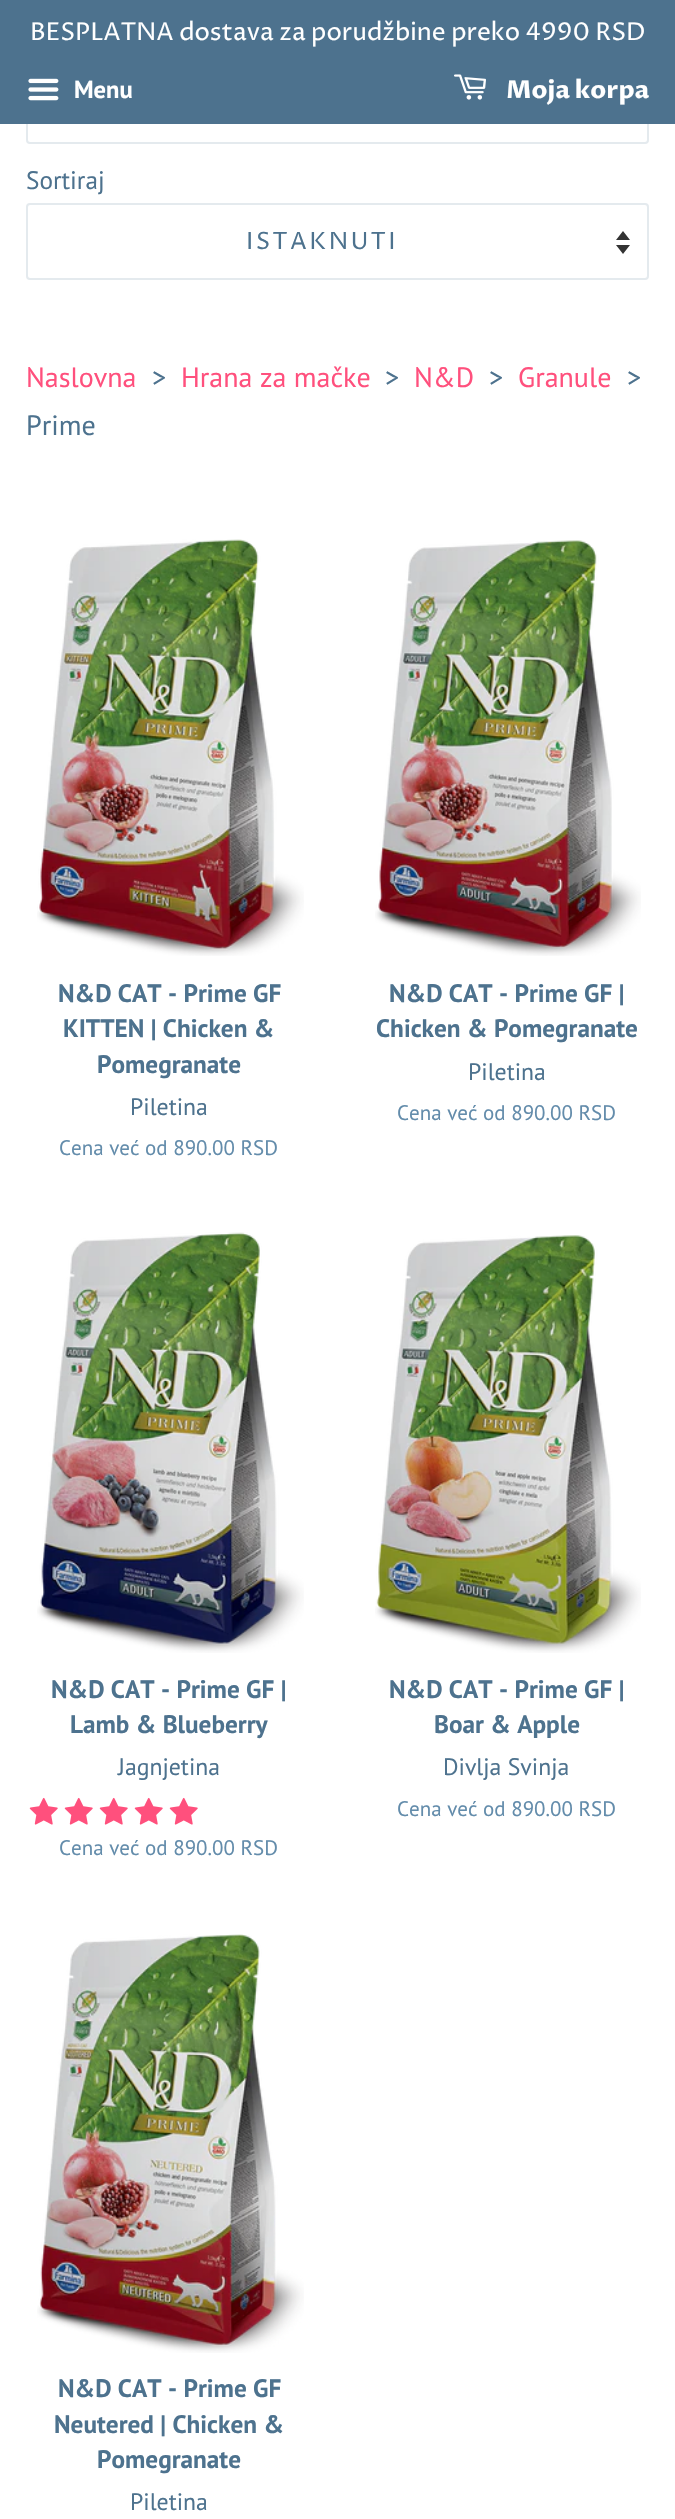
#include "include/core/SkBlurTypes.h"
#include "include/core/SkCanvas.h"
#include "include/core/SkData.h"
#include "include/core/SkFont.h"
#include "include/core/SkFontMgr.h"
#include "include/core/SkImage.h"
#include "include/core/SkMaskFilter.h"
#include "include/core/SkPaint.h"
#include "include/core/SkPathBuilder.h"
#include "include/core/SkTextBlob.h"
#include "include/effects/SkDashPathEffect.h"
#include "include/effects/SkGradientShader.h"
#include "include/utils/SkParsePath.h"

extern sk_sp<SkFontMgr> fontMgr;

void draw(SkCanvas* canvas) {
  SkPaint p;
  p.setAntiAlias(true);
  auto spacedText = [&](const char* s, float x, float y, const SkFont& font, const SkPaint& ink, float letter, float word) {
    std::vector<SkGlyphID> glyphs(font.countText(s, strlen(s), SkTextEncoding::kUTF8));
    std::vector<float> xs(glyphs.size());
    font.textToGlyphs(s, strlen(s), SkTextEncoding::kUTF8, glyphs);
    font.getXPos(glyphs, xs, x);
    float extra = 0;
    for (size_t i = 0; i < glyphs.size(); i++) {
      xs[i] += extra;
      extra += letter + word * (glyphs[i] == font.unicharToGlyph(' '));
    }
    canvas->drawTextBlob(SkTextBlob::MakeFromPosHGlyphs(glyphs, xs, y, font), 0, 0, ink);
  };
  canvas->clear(SK_ColorWHITE);
  p.setStyle(SkPaint::kStroke_Style);
  p.setStrokeWidth(2);
  p.setColor(SkColorSetRGB(228, 234, 238));
  canvas->drawRoundRect(SkRect::MakeLTRB(27, 68, 648, 143), 3, 3, p);
  p.setStyle(SkPaint::kFill_Style);
  p.setColor(SkColorSetRGB(77, 114, 142));
  canvas->drawRect(SkRect::MakeLTRB(0, 0, 675, 124), p);
  canvas->drawImageRect(SkImages::DeferredFromEncodedData(SkData::MakeFromFileName("images/1.png")), SkRect::MakeLTRB(28, 78, 59, 101), SkSamplingOptions());
  canvas->drawImageRect(SkImages::DeferredFromEncodedData(SkData::MakeFromFileName("images/2.png")), SkRect::MakeLTRB(454, 74, 486, 100), SkSamplingOptions());
  p.setColor(SkColorSetRGB(51, 51, 51));
  canvas->drawPath(SkPathBuilder().moveTo(616, 245).lineTo(623, 254).lineTo(630, 245).close().moveTo(623, 231).lineTo(616, 240).lineTo(630, 240).close().detach(), p);
  p.setStyle(SkPaint::kStroke_Style);
  p.setColor(SkColorSetRGB(228, 234, 238));
  canvas->drawRoundRect(SkRect::MakeLTRB(27, 204, 648, 279), 3, 3, p);
  canvas->drawImageRect(SkImages::DeferredFromEncodedData(SkData::MakeFromFileName("images/3.png")), SkRect::MakeLTRB(37, 539, 304, 956), SkSamplingOptions());
  canvas->drawImageRect(SkImages::DeferredFromEncodedData(SkData::MakeFromFileName("images/4.png")), SkRect::MakeLTRB(375, 540, 641, 956), SkSamplingOptions());
  canvas->drawImageRect(SkImages::DeferredFromEncodedData(SkData::MakeFromFileName("images/5.png")), SkRect::MakeLTRB(37, 1232, 304, 1653), SkSamplingOptions());
  canvas->drawImageRect(SkImages::DeferredFromEncodedData(SkData::MakeFromFileName("images/6.png")), SkRect::MakeLTRB(29, 1797, 58, 1825), SkSamplingOptions());
  canvas->drawImageRect(SkImages::DeferredFromEncodedData(SkData::MakeFromFileName("images/6.png")), SkRect::MakeLTRB(64, 1797, 93, 1825), SkSamplingOptions());
  canvas->drawImageRect(SkImages::DeferredFromEncodedData(SkData::MakeFromFileName("images/6.png")), SkRect::MakeLTRB(99, 1797, 128, 1825), SkSamplingOptions());
  canvas->drawImageRect(SkImages::DeferredFromEncodedData(SkData::MakeFromFileName("images/6.png")), SkRect::MakeLTRB(134, 1797, 163, 1825), SkSamplingOptions());
  canvas->drawImageRect(SkImages::DeferredFromEncodedData(SkData::MakeFromFileName("images/6.png")), SkRect::MakeLTRB(169, 1797, 198, 1825), SkSamplingOptions());
  canvas->drawImageRect(SkImages::DeferredFromEncodedData(SkData::MakeFromFileName("images/7.png")), SkRect::MakeLTRB(375, 1235, 641, 1653), SkSamplingOptions());
  canvas->drawImageRect(SkImages::DeferredFromEncodedData(SkData::MakeFromFileName("images/8.png")), SkRect::MakeLTRB(37, 1934, 304, 2353), SkSamplingOptions());
  SkFont font1(fontMgr->matchFamilyStyle("Proza Libre", SkFontStyle::Normal()), 24.5f);
  font1.setSubpixel(true);
  p.setStyle(SkPaint::kFill_Style);
  p.setColor(SK_ColorWHITE);
  canvas->drawString("BESPLATNA dostava za porudžbine preko 4990 RSD", 30, 40, font1, p);
  SkFont font2(fontMgr->matchFamilyStyle("PT Sans", SkFontStyle::Bold()), 24.5f);
  font2.setSubpixel(true);
  canvas->drawString("Menu", 74, 98, font2, p);
  SkFont font3(fontMgr->matchFamilyStyle("Proza Libre", SkFontStyle::Bold()), 24.5f);
  font3.setSubpixel(true);
  canvas->drawString("Moja korpa", 506, 98, font3, p);
  SkFont font4(fontMgr->matchFamilyStyle("PT Sans", SkFontStyle::Normal()), 25.25f);
  font4.setSubpixel(true);
  p.setColor(SkColorSetRGB(77, 114, 142));
  canvas->drawString("Sortiraj", 26, 189, font4, p);
  SkFont font5(fontMgr->matchFamilyStyle("Proza Libre", SkFontStyle::Normal()), 23.75f);
  font5.setSubpixel(true);
  spacedText("ISTAKNUTI", 246, 249, font5, p, 2.4f, 0);
  SkFont font6(fontMgr->matchFamilyStyle("PT Sans", SkFontStyle::Normal()), 28);
  font6.setSubpixel(true);
  p.setColor(SkColorSetRGB(255, 80, 125));
  canvas->drawString("Naslovna", 26, 387, font6, p);
  p.setColor(SkColorSetRGB(77, 114, 142));
  canvas->drawString(">", 152, 387, font6, p);
  p.setColor(SkColorSetRGB(255, 80, 125));
  canvas->drawString("Hrana za mačke", 181, 387, font6, p);
  p.setColor(SkColorSetRGB(77, 114, 142));
  canvas->drawString(">", 385, 387, font6, p);
  p.setColor(SkColorSetRGB(255, 80, 125));
  canvas->drawString("N&D", 414, 387, font6, p);
  p.setColor(SkColorSetRGB(77, 114, 142));
  canvas->drawString(">", 489, 387, font6, p);
  p.setColor(SkColorSetRGB(255, 80, 125));
  canvas->drawString("Granule", 518, 387, font6, p);
  p.setColor(SkColorSetRGB(77, 114, 142));
  canvas->drawString(">", 627, 387, font6, p);
  canvas->drawString("Prime", 26, 435, font6, p);
  SkFont font7(fontMgr->matchFamilyStyle("PT Sans", SkFontStyle::Bold()), 25.25f);
  font7.setSubpixel(true);
  canvas->drawString("N&D CAT - Prime GF", 58, 1002, font7, p);
  canvas->drawString("KITTEN | Chicken &", 63, 1037, font7, p);
  canvas->drawString("Pomegranate", 97, 1073, font7, p);
  SkFont font8(fontMgr->matchFamilyStyle("PT Sans", SkFontStyle::Normal()), 23.75f);
  font8.setSubpixel(true);
  canvas->drawString("Piletina", 130, 1115, font8, p);
  SkFont font9(fontMgr->matchFamilyStyle("PT Sans", SkFontStyle::Normal()), 21);
  font9.setSubpixel(true);
  p.setColor(SkColorSetRGB(99, 140, 171));
  canvas->drawString("Cena već od 890.00 RSD", 59, 1155, font9, p);
  p.setColor(SkColorSetRGB(77, 114, 142));
  canvas->drawString("N&D CAT - Prime GF |", 389, 1002, font7, p);
  canvas->drawString("Chicken & Pomegranate", 376, 1037, font7, p);
  canvas->drawString("Piletina", 468, 1080, font8, p);
  p.setColor(SkColorSetRGB(99, 140, 171));
  canvas->drawString("Cena već od 890.00 RSD", 397, 1120, font9, p);
  p.setColor(SkColorSetRGB(77, 114, 142));
  canvas->drawString("N&D CAT - Prime GF |", 51, 1698, font7, p);
  canvas->drawString("Lamb & Blueberry", 70, 1733, font7, p);
  canvas->drawString("Jagnjetina", 118, 1775, font8, p);
  p.setColor(SkColorSetRGB(99, 140, 171));
  canvas->drawString("Cena već od 890.00 RSD", 59, 1855, font9, p);
  p.setColor(SkColorSetRGB(77, 114, 142));
  canvas->drawString("N&D CAT - Prime GF |", 389, 1698, font7, p);
  canvas->drawString("Boar & Apple", 434, 1733, font7, p);
  canvas->drawString("Divlja Svinja", 443, 1775, font8, p);
  p.setColor(SkColorSetRGB(99, 140, 171));
  canvas->drawString("Cena već od 890.00 RSD", 397, 1816, font9, p);
  p.setColor(SkColorSetRGB(77, 114, 142));
  canvas->drawString("N&D CAT - Prime GF", 58, 2397, font7, p);
  canvas->drawString("Neutered | Chicken &", 54, 2433, font7, p);
  canvas->drawString("Pomegranate", 97, 2468, font7, p);
  canvas->drawString("Piletina", 130, 2510, font8, p);
}
